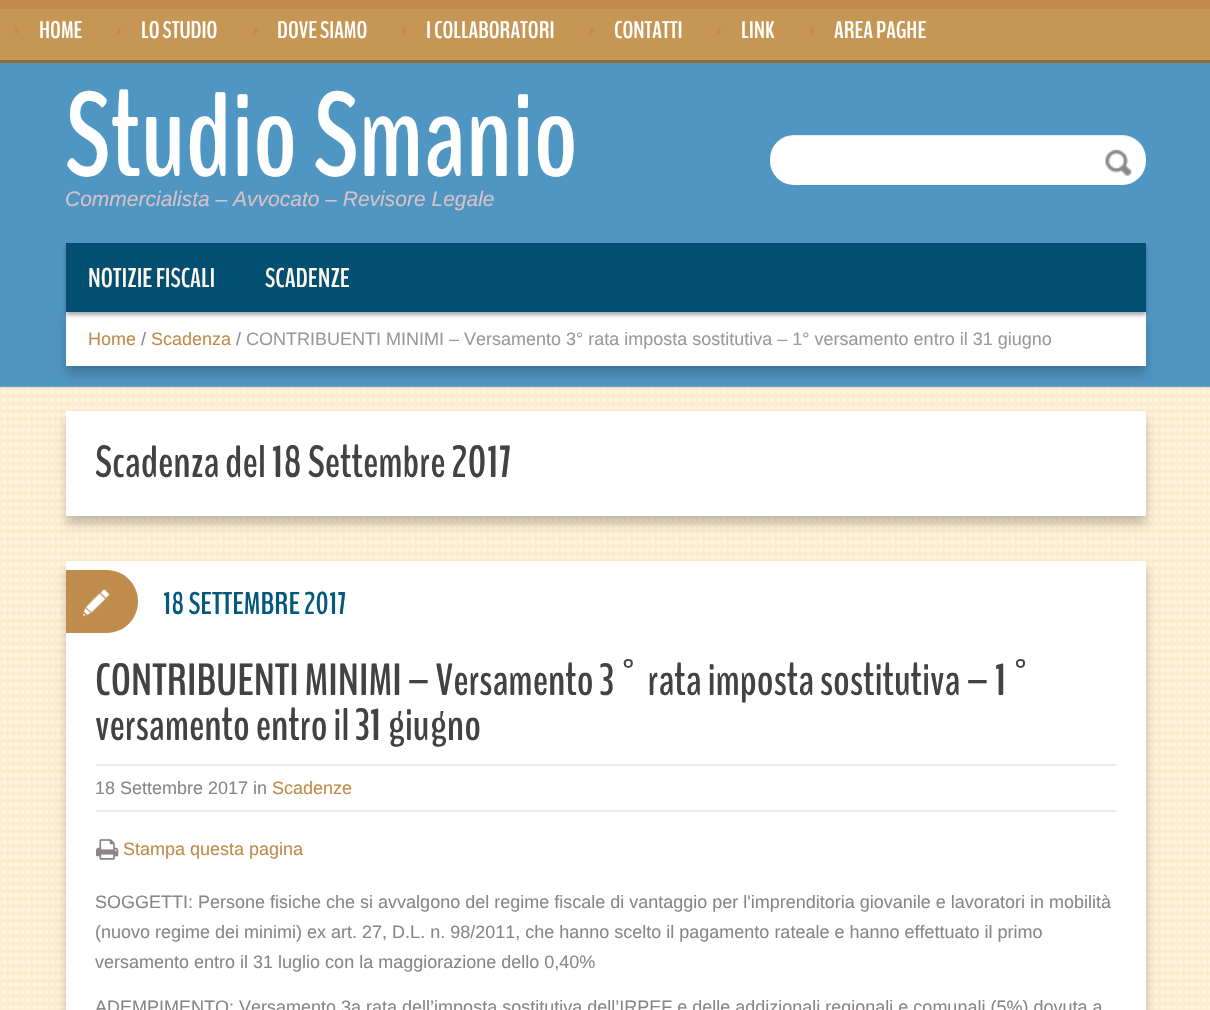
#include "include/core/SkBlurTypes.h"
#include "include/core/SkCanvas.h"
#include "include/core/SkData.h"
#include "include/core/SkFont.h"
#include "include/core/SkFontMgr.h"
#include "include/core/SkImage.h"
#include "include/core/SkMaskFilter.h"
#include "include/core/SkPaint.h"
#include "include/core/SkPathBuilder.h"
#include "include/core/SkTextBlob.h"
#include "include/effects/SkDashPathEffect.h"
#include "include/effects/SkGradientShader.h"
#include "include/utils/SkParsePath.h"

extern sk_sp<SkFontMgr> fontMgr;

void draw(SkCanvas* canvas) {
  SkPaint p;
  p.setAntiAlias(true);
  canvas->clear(SK_ColorWHITE);
  canvas->drawImageRect(SkImages::DeferredFromEncodedData(SkData::MakeFromFileName("images/1.png")), SkRect::MakeLTRB(0, 63, 1210, 1010), SkSamplingOptions());
  p.setColor(SkColorSetRGB(191, 140, 75));
  canvas->drawRect(SkRect::MakeLTRB(0, 0, 1210, 9), p);
  p.setColor(SkColorSetRGB(198, 150, 85));
  canvas->drawRect(SkRect::MakeLTRB(0, 9, 1210, 60), p);
  p.setColor(SkColorSetRGB(145, 109, 61));
  canvas->drawRect(SkRect::MakeLTRB(0, 60, 1210, 63), p);
  canvas->drawImageRect(SkImages::DeferredFromEncodedData(SkData::MakeFromFileName("images/2.png")), SkRect::MakeLTRB(15, 27, 20, 35), SkSamplingOptions());
  canvas->drawImageRect(SkImages::DeferredFromEncodedData(SkData::MakeFromFileName("images/2.png")), SkRect::MakeLTRB(117, 27, 122, 35), SkSamplingOptions());
  canvas->drawImageRect(SkImages::DeferredFromEncodedData(SkData::MakeFromFileName("images/3.png")), SkRect::MakeLTRB(253, 27, 258, 35), SkSamplingOptions());
  canvas->drawImageRect(SkImages::DeferredFromEncodedData(SkData::MakeFromFileName("images/4.png")), SkRect::MakeLTRB(402, 27, 407, 35), SkSamplingOptions());
  canvas->drawImageRect(SkImages::DeferredFromEncodedData(SkData::MakeFromFileName("images/5.png")), SkRect::MakeLTRB(589, 27, 594, 35), SkSamplingOptions());
  canvas->drawImageRect(SkImages::DeferredFromEncodedData(SkData::MakeFromFileName("images/4.png")), SkRect::MakeLTRB(717, 27, 722, 35), SkSamplingOptions());
  canvas->drawImageRect(SkImages::DeferredFromEncodedData(SkData::MakeFromFileName("images/2.png")), SkRect::MakeLTRB(810, 27, 815, 35), SkSamplingOptions());
  p.setColor(SK_ColorWHITE);
  canvas->drawRoundRect(SkRect::MakeLTRB(770, 135, 1146, 185), 24, 24, p);
  p.setColor(SkColorSetARGB(18, 0, 0, 0));
  canvas->drawPath(SkPathBuilder().moveTo(794, 136).lineTo(1122, 136).cubicTo(1135, 136, 1146, 147, 1146, 160).lineTo(1146, 159).cubicTo(1146, 146, 1135, 135, 1122, 135).lineTo(794, 135).cubicTo(781, 135, 770, 146, 770, 159).lineTo(770, 160).cubicTo(770, 147, 780, 136, 794, 136).close().detach(), p);
  canvas->drawImageRect(SkImages::DeferredFromEncodedData(SkData::MakeFromFileName("images/6.png")), SkRect::MakeLTRB(1105, 149, 1132, 176), SkSamplingOptions());
  p.setColor(SkColorSetARGB(56, 0, 0, 0));
  p.setMaskFilter(SkMaskFilter::MakeBlur(kNormal_SkBlurStyle, 5));
  canvas->drawRect(SkRect::MakeLTRB(66, 320, 1146, 374), p);
  p.setMaskFilter(nullptr);
  p.setColor(SK_ColorWHITE);
  canvas->drawRect(SkRect::MakeLTRB(66, 312, 1146, 366), p);
  p.setColor(SkColorSetARGB(84, 0, 0, 0));
  p.setMaskFilter(SkMaskFilter::MakeBlur(kNormal_SkBlurStyle, 2));
  canvas->drawRect(SkRect::MakeLTRB(66, 246, 1146, 315), p);
  p.setMaskFilter(nullptr);
  p.setColor(SkColorSetRGB(3, 79, 114));
  canvas->drawRect(SkRect::MakeLTRB(66, 243, 1146, 312), p);
  p.setColor(SkColorSetARGB(56, 0, 0, 0));
  p.setMaskFilter(SkMaskFilter::MakeBlur(kNormal_SkBlurStyle, 5));
  canvas->drawRect(SkRect::MakeLTRB(66, 419, 1146, 524), p);
  p.setMaskFilter(nullptr);
  p.setColor(SK_ColorWHITE);
  canvas->drawRect(SkRect::MakeLTRB(66, 411, 1146, 516), p);
  p.setColor(SkColorSetARGB(56, 0, 0, 0));
  p.setMaskFilter(SkMaskFilter::MakeBlur(kNormal_SkBlurStyle, 5));
  canvas->drawRect(SkRect::MakeLTRB(66, 569, 1146, 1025), p);
  p.setMaskFilter(nullptr);
  p.setColor(SK_ColorWHITE);
  canvas->drawRect(SkRect::MakeLTRB(66, 561, 1146, 1010), p);
  p.setColor(SkColorSetRGB(191, 140, 75));
  canvas->drawPath(SkPathBuilder().moveTo(66, 570).lineTo(106.5f, 570).cubicTo(124, 570, 138, 584, 138, 601.5f).cubicTo(138, 619, 124, 633, 106.5f, 633).lineTo(66, 633).close().detach(), p);
  canvas->drawImageRect(SkImages::DeferredFromEncodedData(SkData::MakeFromFileName("images/7.png")), SkRect::MakeLTRB(82, 589, 110, 617), SkSamplingOptions());
  p.setColor(SkColorSetRGB(235, 234, 231));
  canvas->drawRect(SkRect::MakeLTRB(96, 764, 1116, 766), p);
  canvas->drawRect(SkRect::MakeLTRB(96, 810, 1116, 812), p);
  canvas->drawImageRect(SkImages::DeferredFromEncodedData(SkData::MakeFromFileName("images/8.png")), SkRect::MakeLTRB(96, 839, 119, 860), SkSamplingOptions());
  SkFont font1(fontMgr->matchFamilyStyle("BenchNine", SkFontStyle::Bold()), 24);
  font1.setSubpixel(true);
  p.setColor(SK_ColorWHITE);
  canvas->drawString("HOME", 39, 38, font1, p);
  canvas->drawString("LO STUDIO", 141, 38, font1, p);
  canvas->drawString("DOVE SIAMO", 277, 38, font1, p);
  canvas->drawString("I COLLABORATORI", 426, 38, font1, p);
  canvas->drawString("CONTATTI", 614, 38, font1, p);
  canvas->drawString("LINK", 741, 38, font1, p);
  canvas->drawString("AREA PAGHE", 834, 38, font1, p);
  SkFont font2(fontMgr->matchFamilyStyle("BenchNine", SkFontStyle::Bold()), 120);
  font2.setSubpixel(true);
  canvas->drawString("Studio Smanio", 65, 176, font2, p);
  SkFont font3(fontMgr->matchFamilyStyle("Liberation Sans", SkFontStyle::Italic()), 21);
  font3.setSubpixel(true);
  p.setColor(SkColorSetRGB(215, 193, 198));
  canvas->drawString("Commercialista – Avvocato – Revisore Legale", 65, 206, font3, p);
  SkFont font4(fontMgr->matchFamilyStyle("BenchNine", SkFontStyle::Bold()), 27);
  font4.setSubpixel(true);
  p.setColor(SkColorSetRGB(255, 248, 237));
  canvas->drawString("NOTIZIE FISCALI", 88, 287, font4, p);
  canvas->drawString("SCADENZE", 265, 287, font4, p);
  SkFont font5(fontMgr->matchFamilyStyle("Liberation Sans", SkFontStyle::Normal()), 18);
  font5.setSubpixel(true);
  p.setColor(SkColorSetRGB(191, 140, 75));
  canvas->drawString("Home", 88, 345, font5, p);
  p.setColor(SkColorSetRGB(139, 134, 134));
  canvas->drawString("/", 141, 345, font5, p);
  p.setColor(SkColorSetRGB(191, 140, 75));
  canvas->drawString("Scadenza", 151, 345, font5, p);
  p.setColor(SkColorSetRGB(139, 134, 134));
  canvas->drawString("/", 236, 345, font5, p);
  p.setColor(SkColorSetRGB(153, 153, 153));
  canvas->drawString("CONTRIBUENTI MINIMI – Versamento 3° rata imposta sostitutiva – 1° versamento entro il 31 giugno", 246, 345, font5, p);
  SkFont font6(fontMgr->matchFamilyStyle("BenchNine", SkFontStyle::Bold()), 45);
  font6.setSubpixel(true);
  p.setColor(SkColorSetRGB(67, 66, 66));
  canvas->drawString("Scadenza del 18 Settembre 2017", 95, 477, font6, p);
  SkFont font7(fontMgr->matchFamilyStyle("BenchNine", SkFontStyle::Bold()), 31.5f);
  font7.setSubpixel(true);
  p.setColor(SkColorSetRGB(2, 88, 125));
  canvas->drawString("18 SETTEMBRE 2017", 163, 614, font7, p);
  p.setColor(SkColorSetRGB(67, 66, 66));
  canvas->drawString("CONTRIBUENTI MINIMI – Versamento 3° rata imposta sostitutiva – 1°", 95, 695, font6, p);
  canvas->drawString("versamento entro il 31 giugno", 95, 740, font6, p);
  p.setColor(SkColorSetRGB(139, 134, 134));
  canvas->drawString("18 Settembre 2017 in", 95, 794, font5, p);
  p.setColor(SkColorSetRGB(191, 140, 75));
  canvas->drawString("Scadenze", 272, 794, font5, p);
  canvas->drawString("Stampa questa pagina", 123, 855, font5, p);
  p.setColor(SkColorSetRGB(139, 134, 134));
  canvas->drawString("SOGGETTI: Persone fisiche che si avvalgono del regime fiscale di vantaggio per l'imprenditoria giovanile e lavoratori in mobilità", 95, 908, font5, p);
  canvas->drawString("(nuovo regime dei minimi) ex art. 27, D.L. n. 98/2011, che hanno scelto il pagamento rateale e hanno effettuato il primo", 95, 938, font5, p);
  canvas->drawString("versamento entro il 31 luglio con la maggiorazione dello 0,40%", 95, 968, font5, p);
  canvas->drawString("ADEMPIMENTO: Versamento 3a rata dell’imposta sostitutiva dell’IRPEF e delle addizionali regionali e comunali (5%) dovuta a", 95, 1013, font5, p);
}
